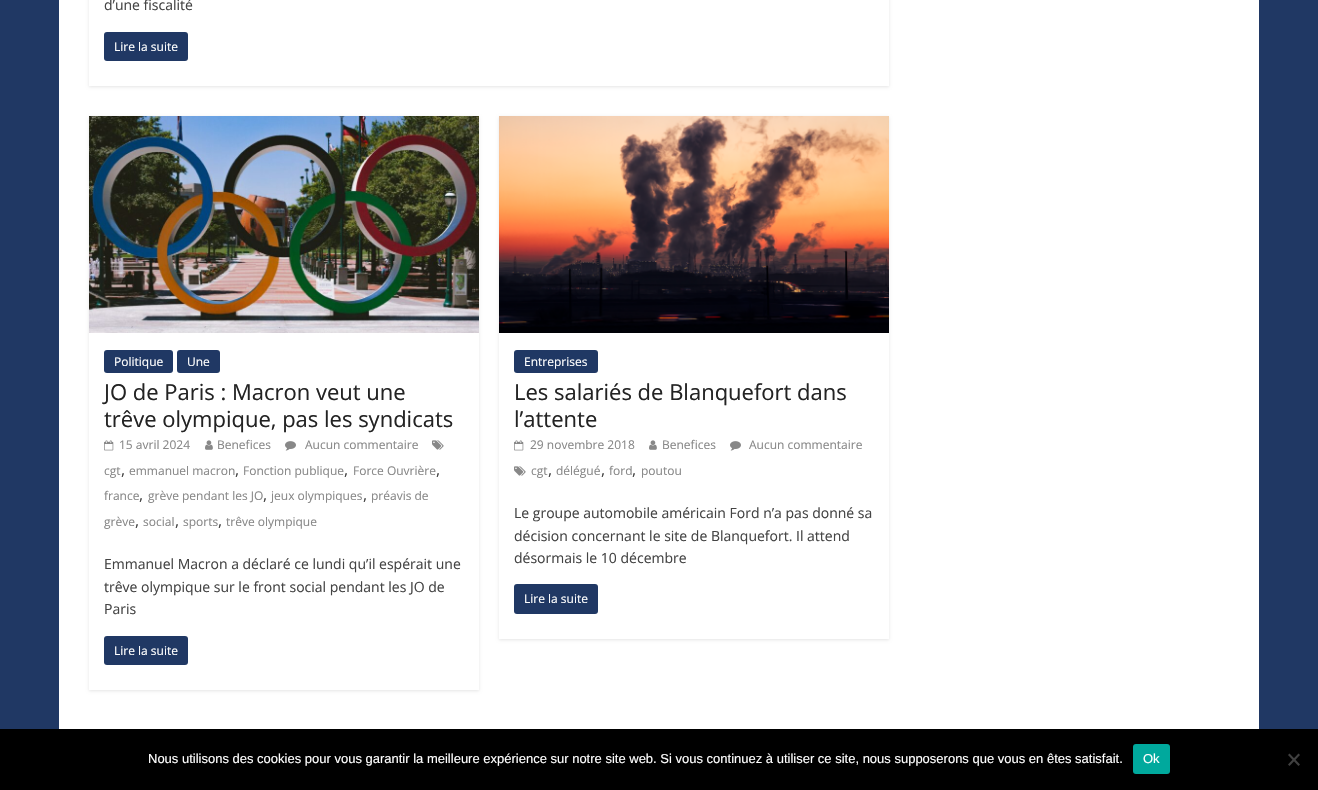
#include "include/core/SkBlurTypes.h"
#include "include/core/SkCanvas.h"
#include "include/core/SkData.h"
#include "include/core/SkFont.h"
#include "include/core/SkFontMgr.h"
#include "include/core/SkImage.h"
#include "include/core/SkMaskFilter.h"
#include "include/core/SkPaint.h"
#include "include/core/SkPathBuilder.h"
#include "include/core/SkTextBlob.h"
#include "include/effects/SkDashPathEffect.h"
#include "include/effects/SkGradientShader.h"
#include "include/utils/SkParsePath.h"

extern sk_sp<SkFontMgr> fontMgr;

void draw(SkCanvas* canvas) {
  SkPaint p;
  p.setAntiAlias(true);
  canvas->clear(SkColorSetRGB(32, 56, 100));
  p.setColor(SK_ColorWHITE);
  canvas->drawRect(SkRect::MakeLTRB(59, 0, 1259, 729), p);
  canvas->save();
  canvas->clipPath(SkPathBuilder(SkPathFillType::kEvenOdd).moveTo(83, 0).lineTo(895, 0).lineTo(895, 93).lineTo(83, 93).close().moveTo(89, -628).lineTo(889, -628).lineTo(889, 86).lineTo(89, 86).close().detach(), true);
  p.setColor(SkColorSetARGB(26, 0, 0, 0));
  p.setMaskFilter(SkMaskFilter::MakeBlur(kNormal_SkBlurStyle, 1.5f));
  canvas->drawRect(SkRect::MakeLTRB(89, -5, 889, 87), p);
  p.setMaskFilter(nullptr);
  canvas->restore();
  p.setColor(SkColorSetRGB(32, 56, 100));
  canvas->drawRoundRect(SkRect::MakeLTRB(104, 32, 188, 61), 3, 3, p);
  canvas->save();
  canvas->clipPath(SkPathBuilder(SkPathFillType::kEvenOdd).moveTo(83, 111).lineTo(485, 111).lineTo(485, 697).lineTo(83, 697).close().moveTo(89, 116).lineTo(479, 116).lineTo(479, 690).lineTo(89, 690).close().detach(), true);
  p.setColor(SkColorSetARGB(26, 0, 0, 0));
  p.setMaskFilter(SkMaskFilter::MakeBlur(kNormal_SkBlurStyle, 1.5f));
  canvas->drawRect(SkRect::MakeLTRB(89, 117, 479, 691), p);
  p.setMaskFilter(nullptr);
  canvas->restore();
  canvas->drawImageRect(SkImages::DeferredFromEncodedData(SkData::MakeFromFileName("images/1.png")), SkRect::MakeLTRB(89, 116, 479, 333), SkSamplingOptions());
  p.setColor(SkColorSetRGB(32, 56, 100));
  canvas->drawRoundRect(SkRect::MakeLTRB(104, 350, 173, 373), 3, 3, p);
  canvas->drawRoundRect(SkRect::MakeLTRB(177, 350, 220, 373), 3, 3, p);
  canvas->drawImageRect(SkImages::DeferredFromEncodedData(SkData::MakeFromFileName("images/2.png")), SkRect::MakeLTRB(104, 440, 114, 451), SkSamplingOptions());
  canvas->drawImageRect(SkImages::DeferredFromEncodedData(SkData::MakeFromFileName("images/3.png")), SkRect::MakeLTRB(205, 440, 213, 450), SkSamplingOptions());
  canvas->drawImageRect(SkImages::DeferredFromEncodedData(SkData::MakeFromFileName("images/4.png")), SkRect::MakeLTRB(285, 441, 296, 451), SkSamplingOptions());
  canvas->drawImageRect(SkImages::DeferredFromEncodedData(SkData::MakeFromFileName("images/5.png")), SkRect::MakeLTRB(432, 440, 444, 450), SkSamplingOptions());
  canvas->drawRoundRect(SkRect::MakeLTRB(104, 636, 188, 665), 3, 3, p);
  canvas->save();
  canvas->clipPath(SkPathBuilder(SkPathFillType::kEvenOdd).moveTo(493, 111).lineTo(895, 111).lineTo(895, 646).lineTo(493, 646).close().moveTo(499, 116).lineTo(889, 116).lineTo(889, 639).lineTo(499, 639).close().detach(), true);
  p.setColor(SkColorSetARGB(26, 0, 0, 0));
  p.setMaskFilter(SkMaskFilter::MakeBlur(kNormal_SkBlurStyle, 1.5f));
  canvas->drawRect(SkRect::MakeLTRB(499, 117, 889, 640), p);
  p.setMaskFilter(nullptr);
  canvas->restore();
  canvas->drawImageRect(SkImages::DeferredFromEncodedData(SkData::MakeFromFileName("images/6.png")), SkRect::MakeLTRB(499, 116, 889, 333), SkSamplingOptions());
  p.setColor(SkColorSetRGB(32, 56, 100));
  canvas->drawRoundRect(SkRect::MakeLTRB(514, 350, 598, 373), 3, 3, p);
  canvas->drawImageRect(SkImages::DeferredFromEncodedData(SkData::MakeFromFileName("images/2.png")), SkRect::MakeLTRB(514, 440, 524, 451), SkSamplingOptions());
  canvas->drawImageRect(SkImages::DeferredFromEncodedData(SkData::MakeFromFileName("images/3.png")), SkRect::MakeLTRB(649, 440, 657, 450), SkSamplingOptions());
  canvas->drawImageRect(SkImages::DeferredFromEncodedData(SkData::MakeFromFileName("images/4.png")), SkRect::MakeLTRB(730, 441, 741, 451), SkSamplingOptions());
  canvas->drawImageRect(SkImages::DeferredFromEncodedData(SkData::MakeFromFileName("images/5.png")), SkRect::MakeLTRB(514, 466, 526, 476), SkSamplingOptions());
  canvas->drawRoundRect(SkRect::MakeLTRB(514, 584, 598, 614), 3, 3, p);
  p.setColor(SK_ColorBLACK);
  canvas->drawRect(SkRect::MakeLTRB(0, 729, 1318, 790), p);
  p.setColor(SkColorSetRGB(0, 169, 157));
  canvas->drawRoundRect(SkRect::MakeLTRB(1133, 744, 1170, 774), 3, 3, p);
  p.setColor(SkColorSetRGB(64, 64, 64));
  canvas->drawPath(SkPathBuilder().moveTo(1298.5f, 753.5f).lineTo(1300, 755).lineTo(1289.5f, 766).lineTo(1288, 764.5f).close().detach(), p);
  canvas->drawPath(SkPathBuilder().moveTo(1288, 755).lineTo(1289.5f, 753.5f).lineTo(1300, 764.5f).lineTo(1298.5f, 766).close().detach(), p);
  SkFont font1(fontMgr->matchFamilyStyle("Open Sans", SkFontStyle::Normal()), 14);
  font1.setSubpixel(true);
  p.setColor(SkColorSetRGB(68, 68, 68));
  canvas->drawString("d’une fiscalité", 104, 10, font1, p);
  SkFont font2(fontMgr->matchFamilyStyle("Open Sans", SkFontStyle::Normal()), 12);
  font2.setSubpixel(true);
  p.setColor(SK_ColorWHITE);
  canvas->drawString("Lire la suite", 114, 51, font2, p);
  canvas->drawString("Politique", 114, 366, font2, p);
  canvas->drawString("Une", 187, 366, font2, p);
  SkFont font3(fontMgr->matchFamilyStyle("Open Sans", SkFontStyle::Normal()), 22);
  font3.setSubpixel(true);
  p.setColor(SkColorSetRGB(35, 35, 35));
  canvas->drawString("JO de Paris : Macron veut une", 104, 400, font3, p);
  canvas->drawString("trêve olympique, pas les syndicats", 104, 427, font3, p);
  p.setColor(SkColorSetRGB(136, 136, 136));
  canvas->drawString("15 avril 2024", 119, 449, font2, p);
  canvas->drawString("Benefices", 217, 449, font2, p);
  canvas->drawString("Aucun commentaire", 305, 449, font2, p);
  canvas->drawString("cgt", 104, 475, font2, p);
  SkFont font4(fontMgr->matchFamilyStyle("Open Sans", SkFontStyle::Normal()), 16);
  font4.setSubpixel(true);
  p.setColor(SkColorSetRGB(68, 68, 68));
  canvas->drawString(",", 121, 475, font4, p);
  p.setColor(SkColorSetRGB(136, 136, 136));
  canvas->drawString("emmanuel macron", 129, 475, font2, p);
  p.setColor(SkColorSetRGB(68, 68, 68));
  canvas->drawString(",", 235, 475, font4, p);
  p.setColor(SkColorSetRGB(136, 136, 136));
  canvas->drawString("Fonction publique", 243, 475, font2, p);
  p.setColor(SkColorSetRGB(68, 68, 68));
  canvas->drawString(",", 344, 475, font4, p);
  p.setColor(SkColorSetRGB(136, 136, 136));
  canvas->drawString("Force Ouvrière", 353, 475, font2, p);
  p.setColor(SkColorSetRGB(68, 68, 68));
  canvas->drawString(",", 436, 475, font4, p);
  p.setColor(SkColorSetRGB(136, 136, 136));
  canvas->drawString("france", 104, 500, font2, p);
  p.setColor(SkColorSetRGB(68, 68, 68));
  canvas->drawString(",", 139, 500, font4, p);
  p.setColor(SkColorSetRGB(136, 136, 136));
  canvas->drawString("grève pendant les JO", 148, 500, font2, p);
  p.setColor(SkColorSetRGB(68, 68, 68));
  canvas->drawString(",", 263, 500, font4, p);
  p.setColor(SkColorSetRGB(136, 136, 136));
  canvas->drawString("jeux olympiques", 271, 500, font2, p);
  p.setColor(SkColorSetRGB(68, 68, 68));
  canvas->drawString(",", 363, 500, font4, p);
  p.setColor(SkColorSetRGB(136, 136, 136));
  canvas->drawString("préavis de", 371, 500, font2, p);
  canvas->drawString("grève", 104, 526, font2, p);
  p.setColor(SkColorSetRGB(68, 68, 68));
  canvas->drawString(",", 135, 526, font4, p);
  p.setColor(SkColorSetRGB(136, 136, 136));
  canvas->drawString("social", 143, 526, font2, p);
  p.setColor(SkColorSetRGB(68, 68, 68));
  canvas->drawString(",", 175, 526, font4, p);
  p.setColor(SkColorSetRGB(136, 136, 136));
  canvas->drawString("sports", 183, 526, font2, p);
  p.setColor(SkColorSetRGB(68, 68, 68));
  canvas->drawString(",", 218, 526, font4, p);
  p.setColor(SkColorSetRGB(136, 136, 136));
  canvas->drawString("trêve olympique", 226, 526, font2, p);
  p.setColor(SkColorSetRGB(68, 68, 68));
  canvas->drawString("Emmanuel Macron a déclaré ce lundi qu’il espérait une", 104, 569, font1, p);
  canvas->drawString("trêve olympique sur le front social pendant les JO de", 104, 592, font1, p);
  canvas->drawString("Paris", 104, 614, font1, p);
  p.setColor(SK_ColorWHITE);
  canvas->drawString("Lire la suite", 114, 655, font2, p);
  canvas->drawString("Entreprises", 524, 366, font2, p);
  p.setColor(SkColorSetRGB(35, 35, 35));
  canvas->drawString("Les salariés de Blanquefort dans", 514, 400, font3, p);
  canvas->drawString("l’attente", 514, 427, font3, p);
  p.setColor(SkColorSetRGB(136, 136, 136));
  canvas->drawString("29 novembre 2018", 530, 449, font2, p);
  canvas->drawString("Benefices", 662, 449, font2, p);
  canvas->drawString("Aucun commentaire", 749, 449, font2, p);
  canvas->drawString("cgt", 531, 475, font2, p);
  p.setColor(SkColorSetRGB(68, 68, 68));
  canvas->drawString(",", 548, 475, font4, p);
  p.setColor(SkColorSetRGB(136, 136, 136));
  canvas->drawString("délégué", 556, 475, font2, p);
  p.setColor(SkColorSetRGB(68, 68, 68));
  canvas->drawString(",", 601, 475, font4, p);
  p.setColor(SkColorSetRGB(136, 136, 136));
  canvas->drawString("ford", 609, 475, font2, p);
  p.setColor(SkColorSetRGB(68, 68, 68));
  canvas->drawString(",", 632, 475, font4, p);
  p.setColor(SkColorSetRGB(136, 136, 136));
  canvas->drawString("poutou", 641, 475, font2, p);
  p.setColor(SkColorSetRGB(68, 68, 68));
  canvas->drawString("Le groupe automobile américain Ford n’a pas donné sa", 514, 518, font1, p);
  canvas->drawString("décision concernant le site de Blanquefort. Il attend", 514, 541, font1, p);
  canvas->drawString("désormais le 10 décembre", 514, 563, font1, p);
  p.setColor(SK_ColorWHITE);
  canvas->drawString("Lire la suite", 524, 603, font2, p);
  SkFont font5(fontMgr->matchFamilyStyle("Liberation Sans", SkFontStyle::Normal()), 13);
  font5.setSubpixel(true);
  canvas->drawString("Nous utilisons des cookies pour vous garantir la meilleure expérience sur notre site web. Si vous continuez à utiliser ce site, nous supposerons que vous en êtes satisfait.", 148, 763, font5, p);
  canvas->drawString("Ok", 1143, 763, font5, p);
}
